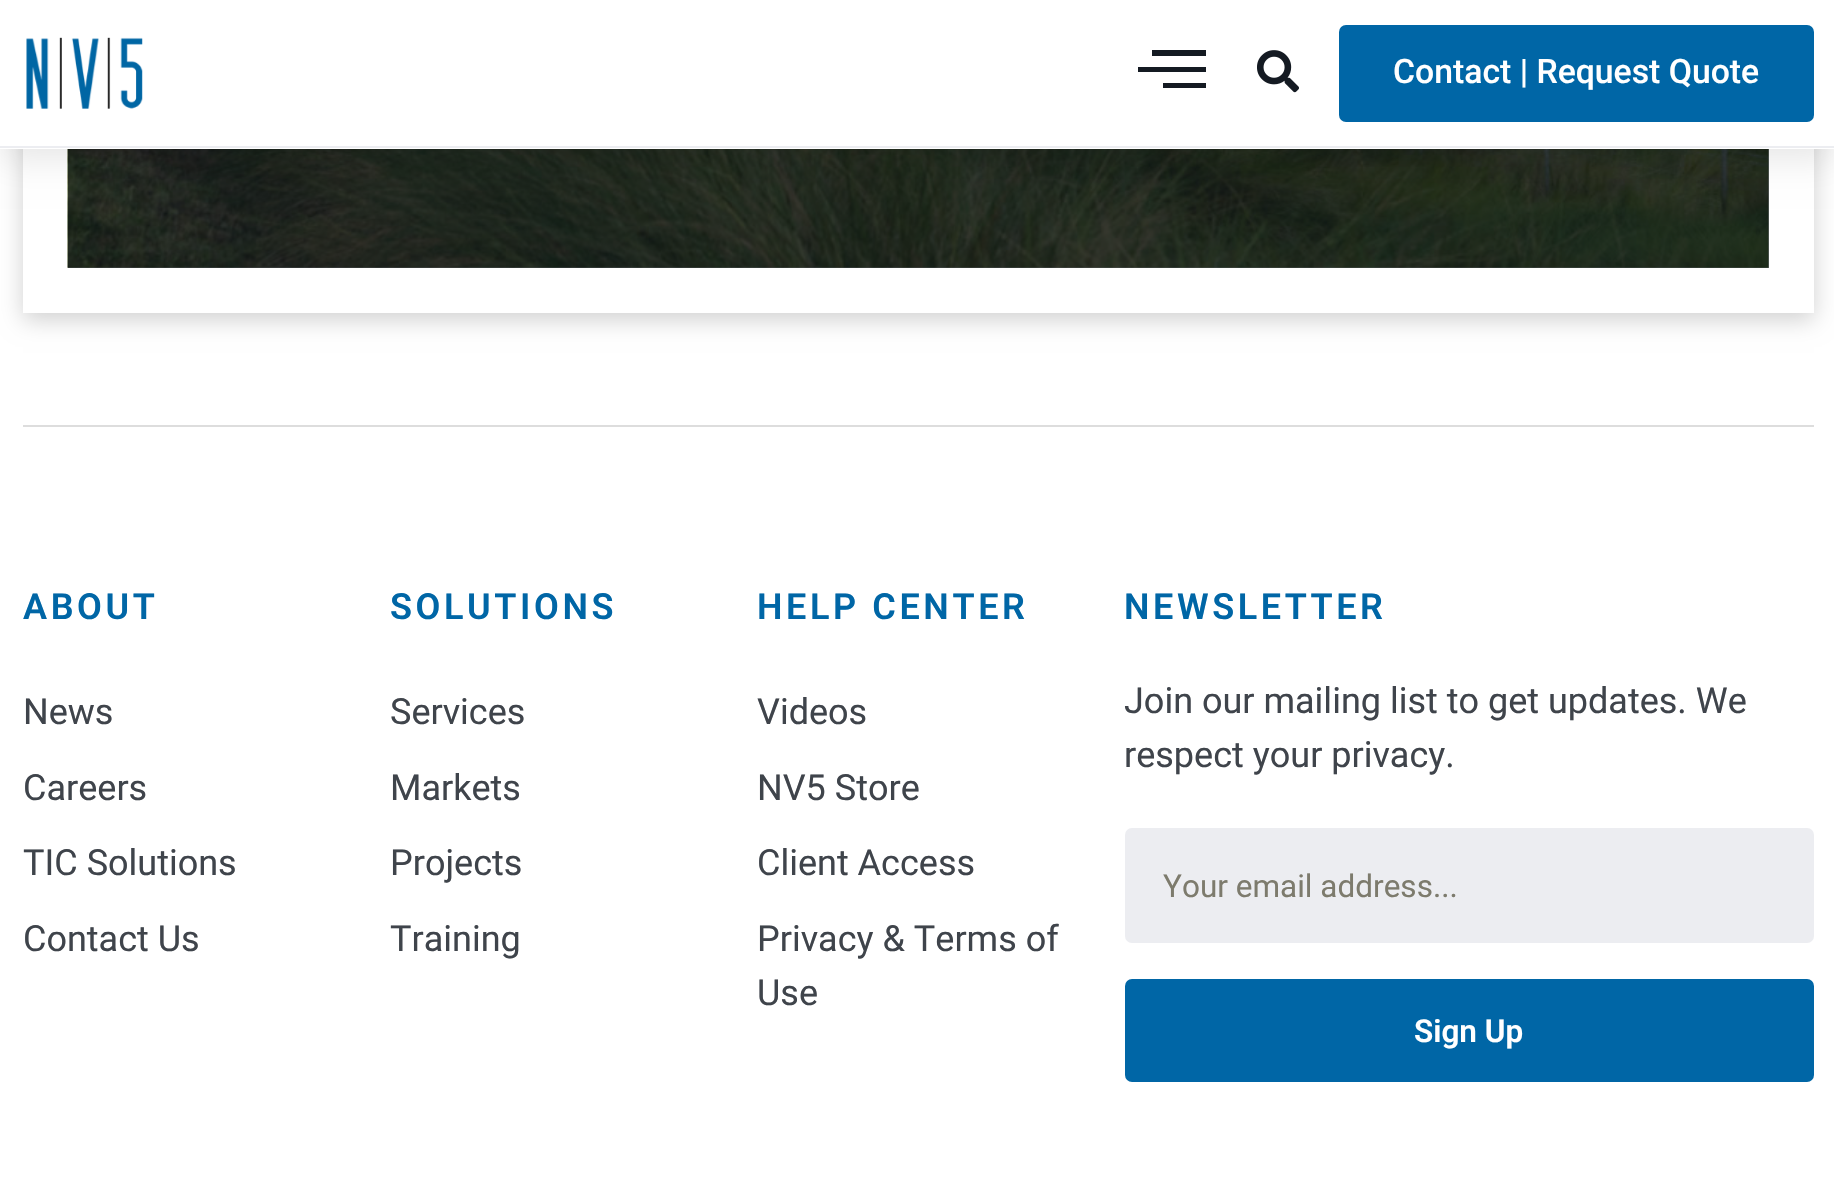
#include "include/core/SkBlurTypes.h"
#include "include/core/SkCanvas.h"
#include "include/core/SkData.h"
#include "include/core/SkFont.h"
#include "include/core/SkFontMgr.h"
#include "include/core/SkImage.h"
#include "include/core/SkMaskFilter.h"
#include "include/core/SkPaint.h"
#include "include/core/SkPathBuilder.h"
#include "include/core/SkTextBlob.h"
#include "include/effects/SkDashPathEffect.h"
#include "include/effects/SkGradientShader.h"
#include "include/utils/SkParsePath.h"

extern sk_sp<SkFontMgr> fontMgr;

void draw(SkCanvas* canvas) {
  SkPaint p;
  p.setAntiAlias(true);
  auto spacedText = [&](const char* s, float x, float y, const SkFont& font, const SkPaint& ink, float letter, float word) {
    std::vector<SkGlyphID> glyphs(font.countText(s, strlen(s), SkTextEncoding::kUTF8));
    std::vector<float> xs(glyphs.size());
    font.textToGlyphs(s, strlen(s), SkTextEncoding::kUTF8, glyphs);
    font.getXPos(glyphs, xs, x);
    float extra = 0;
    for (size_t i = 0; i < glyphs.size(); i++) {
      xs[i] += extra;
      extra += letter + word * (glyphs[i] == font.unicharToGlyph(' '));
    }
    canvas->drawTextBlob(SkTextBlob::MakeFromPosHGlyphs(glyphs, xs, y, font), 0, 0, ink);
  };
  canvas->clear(SK_ColorWHITE);
  p.setColor(SkColorSetRGB(109, 113, 118));
  canvas->drawRect(SkRect::MakeLTRB(68, 149, 1769, 268), p);
  canvas->save();
  canvas->clipPath(SkPathBuilder(SkPathFillType::kEvenOdd).moveTo(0, 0).lineTo(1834, 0).lineTo(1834, 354).lineTo(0, 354).close().moveTo(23, -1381).lineTo(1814, -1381).lineTo(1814, 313).lineTo(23, 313).close().detach(), true);
  p.setColor(SkColorSetARGB(46, 0, 0, 0));
  p.setMaskFilter(SkMaskFilter::MakeBlur(kNormal_SkBlurStyle, 11));
  canvas->drawRect(SkRect::MakeLTRB(23, -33, 1814, 320), p);
  p.setMaskFilter(nullptr);
  canvas->restore();
  canvas->drawImageRect(SkImages::DeferredFromEncodedData(SkData::MakeFromFileName("images/1.png")), SkRect::MakeLTRB(67, 149, 1769, 268), SkSamplingOptions());
  p.setColor(SkColorSetARGB(26, 0, 0, 0));
  p.setMaskFilter(SkMaskFilter::MakeBlur(kNormal_SkBlurStyle, 17));
  canvas->drawRect(SkRect::MakeLTRB(0, 9, 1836, 158), p);
  p.setMaskFilter(nullptr);
  p.setColor(SK_ColorWHITE);
  canvas->drawRect(SkRect::MakeLTRB(0, 0, 1834, 149), p);
  p.setColor(SkColorSetRGB(236, 237, 241));
  canvas->drawRect(SkRect::MakeLTRB(0, 146, 1834, 148), p);
  canvas->drawImageRect(SkImages::DeferredFromEncodedData(SkData::MakeFromFileName("images/2.png")), SkRect::MakeLTRB(26, 37, 143, 109), SkSamplingOptions());
  p.setColor(SkColorSetRGB(20, 26, 34));
  canvas->drawPath(SkPathBuilder().moveTo(1138, 72).lineTo(1206, 72).lineTo(1206, 67).lineTo(1138, 67).close().moveTo(1163, 88).lineTo(1206, 88).lineTo(1206, 83).lineTo(1163, 83).close().moveTo(1152, 50).lineTo(1152, 56).lineTo(1206, 56).lineTo(1206, 50).close().detach(), p);
  canvas->drawImageRect(SkImages::DeferredFromEncodedData(SkData::MakeFromFileName("images/3.png")), SkRect::MakeLTRB(1257, 50, 1299, 93), SkSamplingOptions());
  p.setColor(SkColorSetRGB(0, 102, 166));
  canvas->drawRoundRect(SkRect::MakeLTRB(1339, 25, 1814, 122), 7, 7, p);
  p.setColor(SkColorSetRGB(221, 221, 221));
  canvas->drawRect(SkRect::MakeLTRB(23, 425, 1814, 427), p);
  p.setColor(SkColorSetRGB(236, 237, 241));
  canvas->drawRoundRect(SkRect::MakeLTRB(1125, 828, 1814, 943), 7, 7, p);
  p.setColor(SkColorSetRGB(0, 102, 166));
  canvas->drawRoundRect(SkRect::MakeLTRB(1125, 979, 1814, 1082), 7, 7, p);
  SkFont font1(fontMgr->matchFamilyStyle("Roboto", SkFontStyle(500, SkFontStyle::kNormal_Width, SkFontStyle::kUpright_Slant)), 33.75f);
  font1.setSubpixel(true);
  p.setColor(SK_ColorWHITE);
  canvas->drawString("Contact | Request Quote", 1393, 83, font1, p);
  SkFont font2(fontMgr->matchFamilyStyle("Roboto", SkFontStyle(600, SkFontStyle::kNormal_Width, SkFontStyle::kUpright_Slant)), 36);
  font2.setSubpixel(true);
  p.setColor(SkColorSetRGB(0, 102, 166));
  spacedText("ABOUT", 23, 619, font2, p, 3.6f, 0);
  SkFont font3(fontMgr->matchFamilyStyle("Roboto", SkFontStyle::Normal()), 36);
  font3.setSubpixel(true);
  p.setColor(SkColorSetRGB(63, 68, 75));
  canvas->drawString("News", 23, 724, font3, p);
  canvas->drawString("Careers", 23, 800, font3, p);
  canvas->drawString("TIC Solutions", 23, 875, font3, p);
  canvas->drawString("Contact Us", 23, 951, font3, p);
  p.setColor(SkColorSetRGB(0, 102, 166));
  spacedText("SOLUTIONS", 390, 619, font2, p, 3.6f, 0);
  p.setColor(SkColorSetRGB(63, 68, 75));
  canvas->drawString("Services", 390, 724, font3, p);
  canvas->drawString("Markets", 390, 800, font3, p);
  canvas->drawString("Projects", 390, 875, font3, p);
  canvas->drawString("Training", 390, 951, font3, p);
  p.setColor(SkColorSetRGB(0, 102, 166));
  spacedText("HELP CENTER", 757, 619, font2, p, 3.6f, 0);
  p.setColor(SkColorSetRGB(63, 68, 75));
  canvas->drawString("Videos", 757, 724, font3, p);
  canvas->drawString("NV5 Store", 757, 800, font3, p);
  canvas->drawString("Client Access", 757, 875, font3, p);
  canvas->drawString("Privacy & Terms of", 757, 951, font3, p);
  canvas->drawString("Use", 757, 1005, font3, p);
  p.setColor(SkColorSetRGB(0, 102, 166));
  spacedText("NEWSLETTER", 1124, 619, font2, p, 3.6f, 0);
  p.setColor(SkColorSetRGB(63, 68, 75));
  canvas->drawString("Join our mailing list to get updates. We", 1124, 713, font3, p);
  canvas->drawString("respect your privacy.", 1124, 767, font3, p);
  SkFont font4(fontMgr->matchFamilyStyle("Roboto", SkFontStyle::Normal()), 31.5f);
  font4.setSubpixel(true);
  p.setColor(SkColorSetRGB(125, 123, 109));
  canvas->drawString("Your email address...", 1163, 897, font4, p);
  SkFont font5(fontMgr->matchFamilyStyle("Roboto", SkFontStyle(600, SkFontStyle::kNormal_Width, SkFontStyle::kUpright_Slant)), 31.5f);
  font5.setSubpixel(true);
  p.setColor(SK_ColorWHITE);
  canvas->drawString("Sign Up", 1414, 1042, font5, p);
}
